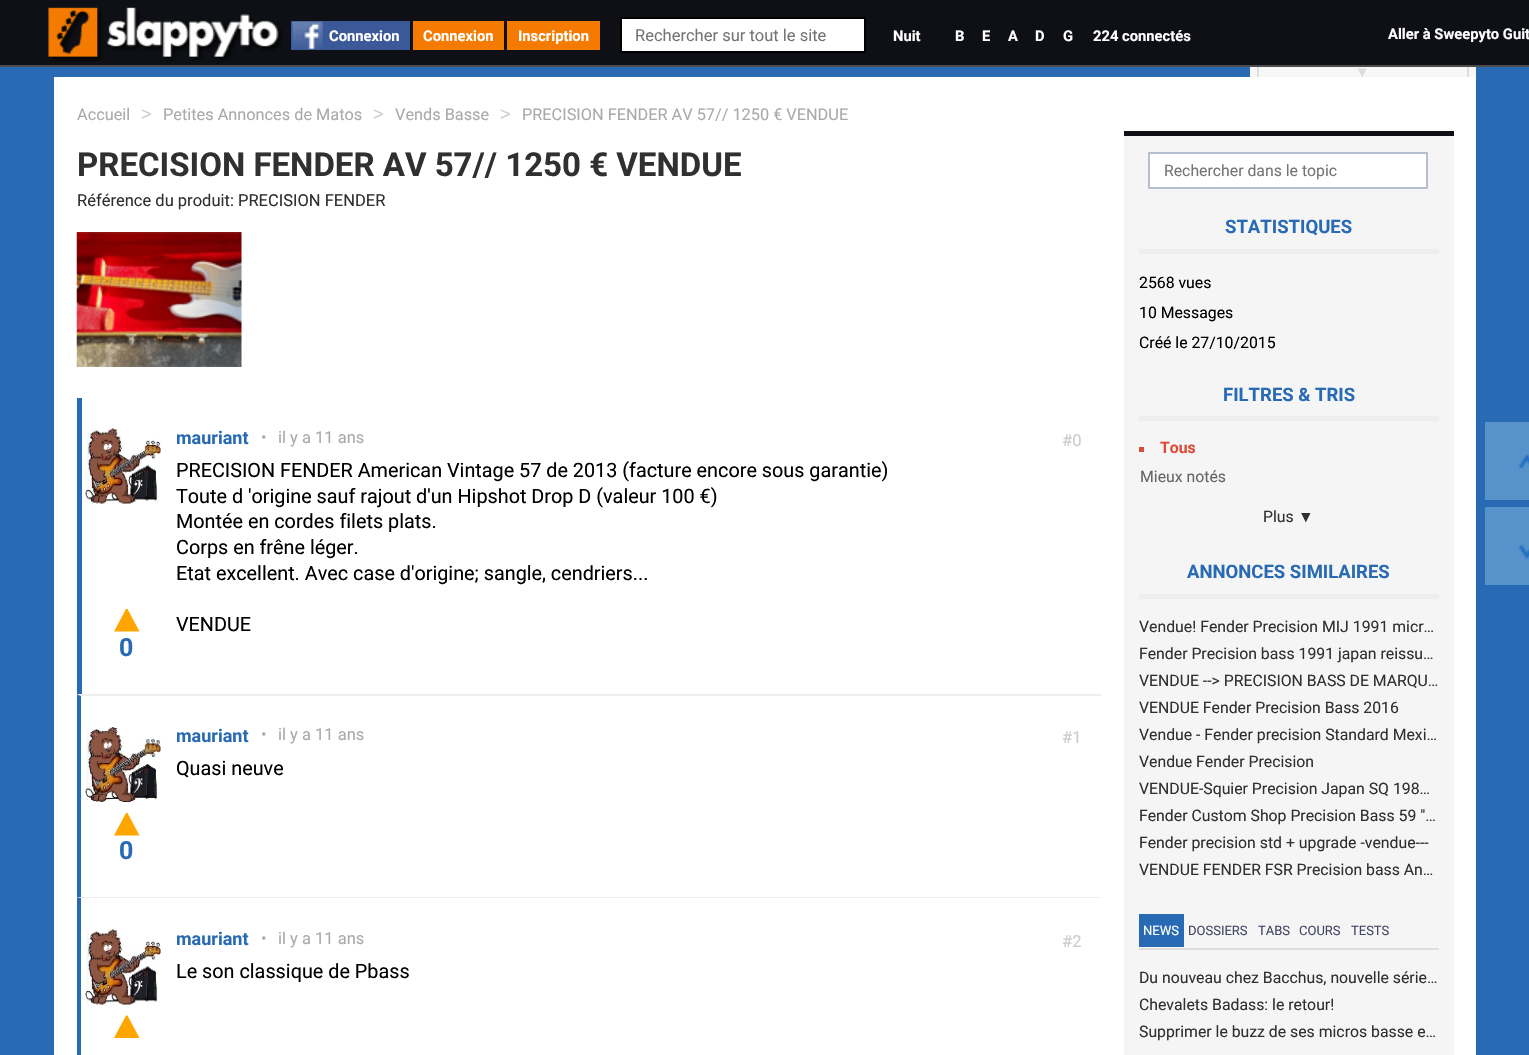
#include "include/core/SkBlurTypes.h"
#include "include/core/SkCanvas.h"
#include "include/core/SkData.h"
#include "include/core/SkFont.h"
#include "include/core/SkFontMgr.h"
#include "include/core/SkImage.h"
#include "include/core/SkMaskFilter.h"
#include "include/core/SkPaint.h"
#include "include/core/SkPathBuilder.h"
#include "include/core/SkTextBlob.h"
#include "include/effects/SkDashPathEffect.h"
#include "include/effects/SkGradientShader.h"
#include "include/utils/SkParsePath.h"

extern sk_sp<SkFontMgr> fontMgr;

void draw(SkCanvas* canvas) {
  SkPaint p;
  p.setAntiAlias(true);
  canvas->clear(SkColorSetRGB(40, 106, 179));
  p.setColor(SkColorSetRGB(247, 247, 247));
  canvas->drawRect(SkRect::MakeLTRB(1250, 67, 1476, 77), p);
  p.setColor(SK_ColorWHITE);
  canvas->drawRect(SkRect::MakeLTRB(54, 77, 1476, 1055), p);
  canvas->save();
  canvas->clipRect(SkRect::MakeLTRB(1250, 0, 1476, 77));
  p.setStyle(SkPaint::kStroke_Style);
  p.setStrokeWidth(2);
  p.setColor(SkColorSetRGB(221, 221, 221));
  canvas->drawRect(SkRect::MakeLTRB(1258, 55, 1468, 88), p);
  canvas->restore();
  p.setStyle(SkPaint::kFill_Style);
  p.setColor(SkColorSetRGB(14, 16, 21));
  canvas->drawRect(SkRect::MakeLTRB(0, 0, 1529, 65), p);
  p.setColor(SkColorSetRGB(76, 76, 76));
  canvas->drawRect(SkRect::MakeLTRB(0, 65, 1529, 67), p);
  canvas->drawImageRect(SkImages::DeferredFromEncodedData(SkData::MakeFromFileName("images/1.png")), SkRect::MakeLTRB(48, 7, 283, 62), SkSamplingOptions());
  p.setColor(SkColorSetRGB(59, 89, 152));
  canvas->drawRect(SkRect::MakeLTRB(291, 21, 410, 50), p);
  canvas->drawImageRect(SkImages::DeferredFromEncodedData(SkData::MakeFromFileName("images/2.png")), SkRect::MakeLTRB(291, 21, 324, 49), SkSamplingOptions());
  p.setColor(SkColorSetRGB(244, 122, 0));
  canvas->drawRect(SkRect::MakeLTRB(413, 21, 504, 50), p);
  canvas->drawRect(SkRect::MakeLTRB(507, 21, 600, 50), p);
  p.setColor(SK_ColorWHITE);
  canvas->drawRect(SkRect::MakeLTRB(621, 18, 865, 52), p);
  p.setStyle(SkPaint::kStroke_Style);
  p.setColor(SK_ColorBLACK);
  canvas->drawRect(SkRect::MakeLTRB(621, 18, 865, 52), p);
  p.setStyle(SkPaint::kFill_Style);
  p.setColor(SkColorSetRGB(245, 245, 245));
  canvas->drawRect(SkRect::MakeLTRB(1124, 136, 1454, 1055), p);
  p.setColor(SkColorSetRGB(14, 16, 21));
  canvas->drawRect(SkRect::MakeLTRB(1124, 131, 1454, 136), p);
  p.setColor(SK_ColorWHITE);
  canvas->drawRect(SkRect::MakeLTRB(1149, 153, 1427, 188), p);
  p.setStyle(SkPaint::kStroke_Style);
  p.setColor(SkColorSetRGB(183, 190, 207));
  canvas->drawRect(SkRect::MakeLTRB(1149, 153, 1427, 188), p);
  p.setStyle(SkPaint::kFill_Style);
  p.setColor(SkColorSetRGB(238, 238, 238));
  canvas->drawRect(SkRect::MakeLTRB(1139, 249, 1439, 254), p);
  canvas->drawRect(SkRect::MakeLTRB(1139, 416, 1439, 421), p);
  p.setColor(SkColorSetRGB(221, 75, 57));
  canvas->drawRect(SkRect::MakeLTRB(1139, 447, 1144, 452), p);
  p.setColor(SkColorSetRGB(238, 238, 238));
  canvas->drawRect(SkRect::MakeLTRB(1139, 594, 1439, 599), p);
  p.setColor(SkColorSetRGB(222, 222, 222));
  canvas->drawRect(SkRect::MakeLTRB(1139, 948, 1439, 950), p);
  p.setColor(SkColorSetRGB(40, 106, 179));
  canvas->drawRect(SkRect::MakeLTRB(1139, 914, 1184, 947), p);
  canvas->drawImageRect(SkImages::DeferredFromEncodedData(SkData::MakeFromFileName("images/3.png")), SkRect::MakeLTRB(76, 232, 242, 367), SkSamplingOptions());
  canvas->drawRect(SkRect::MakeLTRB(77, 398, 82, 695), p);
  canvas->drawImageRect(SkImages::DeferredFromEncodedData(SkData::MakeFromFileName("images/4.png")), SkRect::MakeLTRB(85, 428, 161, 504), SkSamplingOptions());
  p.setColor(SkColorSetRGB(255, 165, 0));
  canvas->drawPath(SkPathBuilder().moveTo(139.5f, 631.5f).lineTo(114, 631.5f).lineTo(126, 609).lineTo(127.5f, 609).close().detach(), p);
  p.setColor(SkColorSetRGB(238, 238, 238));
  canvas->drawPath(SkPathBuilder().moveTo(76, 694).lineTo(1101, 694).lineTo(1101, 696).lineTo(81, 696).close().detach(), p);
  canvas->save();
  canvas->clipRect(SkRect::MakeLTRB(77, 233, 1101, 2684));
  p.setColor(SkColorSetRGB(40, 106, 179));
  canvas->drawPath(SkPathBuilder().moveTo(76, 897).lineTo(76, 694).lineTo(81, 696).lineTo(81, 897).close().detach(), p);
  canvas->restore();
  canvas->drawImageRect(SkImages::DeferredFromEncodedData(SkData::MakeFromFileName("images/5.png")), SkRect::MakeLTRB(85, 727, 161, 802), SkSamplingOptions());
  p.setColor(SkColorSetRGB(255, 165, 0));
  canvas->drawPath(SkPathBuilder().moveTo(139.5f, 835.5f).lineTo(114, 835.5f).lineTo(126, 813).lineTo(127.5f, 813).close().detach(), p);
  p.setColor(SkColorSetRGB(238, 238, 238));
  canvas->drawPath(SkPathBuilder().moveTo(76, 897).lineTo(1101, 897).lineTo(1101, 898).lineTo(81, 898).close().detach(), p);
  canvas->save();
  canvas->clipRect(SkRect::MakeLTRB(77, 233, 1101, 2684));
  p.setColor(SkColorSetRGB(40, 106, 179));
  canvas->drawPath(SkPathBuilder().moveTo(76, 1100).lineTo(76, 897).lineTo(81, 898).lineTo(81, 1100).close().detach(), p);
  canvas->restore();
  canvas->drawImageRect(SkImages::DeferredFromEncodedData(SkData::MakeFromFileName("images/4.png")), SkRect::MakeLTRB(85, 929, 161, 1005), SkSamplingOptions());
  p.setColor(SkColorSetRGB(255, 165, 0));
  canvas->drawPath(SkPathBuilder().moveTo(139.5f, 1038).lineTo(114, 1038).lineTo(126, 1015.5f).lineTo(127.5f, 1015.5f).close().detach(), p);
  p.setColor(SkColorSetRGB(87, 147, 202));
  canvas->drawRect(SkRect::MakeLTRB(1485, 422, 1529, 500), p);
  canvas->drawImageRect(SkImages::DeferredFromEncodedData(SkData::MakeFromFileName("images/6.png")), SkRect::MakeLTRB(1518, 454, 1529, 469), SkSamplingOptions());
  canvas->drawRect(SkRect::MakeLTRB(1485, 507, 1529, 585), p);
  canvas->drawImageRect(SkImages::DeferredFromEncodedData(SkData::MakeFromFileName("images/7.png")), SkRect::MakeLTRB(1518, 544, 1529, 560), SkSamplingOptions());
  SkFont font1(fontMgr->matchFamilyStyle("Roboto", SkFontStyle::Bold()), 14.75f);
  font1.setSubpixel(true);
  p.setColor(SK_ColorWHITE);
  canvas->drawString("Connexion", 329, 41, font1, p);
  canvas->drawString("Connexion", 423, 41, font1, p);
  canvas->drawString("Inscription", 518, 41, font1, p);
  SkFont font2(fontMgr->matchFamilyStyle("Roboto", SkFontStyle::Normal()), 16.5f);
  font2.setSubpixel(true);
  p.setColor(SkColorSetRGB(117, 117, 117));
  canvas->drawString("Rechercher sur tout le site", 635, 41, font2, p);
  p.setColor(SK_ColorWHITE);
  canvas->drawString("Nuit", 893, 41, font1, p);
  canvas->drawString("B", 955, 41, font1, p);
  canvas->drawString("E", 982, 41, font1, p);
  canvas->drawString("A", 1008, 41, font1, p);
  canvas->drawString("D", 1035, 41, font1, p);
  canvas->drawString("G", 1063, 41, font1, p);
  canvas->drawString("224 connectés", 1093, 41, font1, p);
  canvas->drawString("Aller à Sweepyto Guit", 1388, 39, font1, p);
  SkFont font3(fontMgr->matchFamilyStyle("Liberation Sans", SkFontStyle::Normal()), 14.75f);
  font3.setSubpixel(true);
  p.setColor(SkColorSetRGB(221, 221, 221));
  canvas->drawString("▼", 1355, 77, font3, p);
  SkFont font4(fontMgr->matchFamilyStyle("Roboto", SkFontStyle::Normal()), 16.3f);
  font4.setSubpixel(true);
  p.setColor(SkColorSetRGB(170, 170, 170));
  canvas->drawString("Accueil", 77, 120, font4, p);
  SkFont font5(fontMgr->matchFamilyStyle("Liberation Sans", SkFontStyle::Normal()), 18);
  font5.setSubpixel(true);
  p.setColor(SkColorSetRGB(204, 204, 204));
  canvas->drawString(">", 141, 120, font5, p);
  p.setColor(SkColorSetRGB(170, 170, 170));
  canvas->drawString("Petites Annonces de Matos", 163, 120, font4, p);
  p.setColor(SkColorSetRGB(204, 204, 204));
  canvas->drawString(">", 373, 120, font5, p);
  p.setColor(SkColorSetRGB(170, 170, 170));
  canvas->drawString("Vends Basse", 395, 120, font4, p);
  p.setColor(SkColorSetRGB(204, 204, 204));
  canvas->drawString(">", 500, 120, font5, p);
  p.setColor(SkColorSetRGB(170, 170, 170));
  canvas->drawString("PRECISION FENDER AV 57// 1250 € VENDUE", 522, 120, font4, p);
  SkFont font6(fontMgr->matchFamilyStyle("Roboto", SkFontStyle::Bold()), 33);
  font6.setSubpixel(true);
  p.setColor(SkColorSetRGB(48, 48, 48));
  canvas->drawString("PRECISION FENDER AV 57// 1250 € VENDUE", 77, 176, font6, p);
  canvas->drawString("Référence du produit: PRECISION FENDER", 77, 206, font2, p);
  SkFont font7(fontMgr->matchFamilyStyle("Roboto", SkFontStyle::Normal()), 15.8f);
  font7.setSubpixel(true);
  p.setColor(SkColorSetRGB(117, 117, 117));
  canvas->drawString("Rechercher dans le topic", 1164, 176, font7, p);
  SkFont font8(fontMgr->matchFamilyStyle("Roboto", SkFontStyle::Bold()), 18.5f);
  font8.setSubpixel(true);
  p.setColor(SkColorSetRGB(40, 106, 179));
  canvas->drawString("STATISTIQUES", 1225, 233, font8, p);
  p.setColor(SK_ColorBLACK);
  canvas->drawString("2568 vues", 1139, 288, font7, p);
  canvas->drawString("10 Messages", 1139, 318, font7, p);
  canvas->drawString("Créé le 27/10/2015", 1139, 348, font7, p);
  p.setColor(SkColorSetRGB(40, 106, 179));
  canvas->drawString("FILTRES & TRIS", 1223, 401, font8, p);
  SkFont font9(fontMgr->matchFamilyStyle("Roboto", SkFontStyle::Bold()), 15.8f);
  font9.setSubpixel(true);
  p.setColor(SkColorSetRGB(221, 75, 57));
  canvas->drawString("Tous", 1160, 453, font9, p);
  p.setColor(SkColorSetRGB(102, 102, 102));
  canvas->drawString("Mieux notés", 1140, 482, font7, p);
  p.setColor(SkColorSetRGB(48, 48, 48));
  canvas->drawString("Plus", 1263, 522, font7, p);
  SkFont font10(fontMgr->matchFamilyStyle("Liberation Sans", SkFontStyle::Normal()), 15.8f);
  font10.setSubpixel(true);
  canvas->drawString("▼", 1298, 522, font10, p);
  p.setColor(SkColorSetRGB(40, 106, 179));
  canvas->drawString("ANNONCES SIMILAIRES", 1187, 578, font8, p);
  p.setColor(SkColorSetRGB(48, 48, 48));
  canvas->drawString("Vendue! Fender Precision MIJ 1991 micr…", 1139, 632, font7, p);
  canvas->drawString("Fender Precision bass 1991 japan reissu…", 1139, 659, font7, p);
  canvas->drawString("VENDUE --> PRECISION BASS DE MARQU…", 1139, 686, font7, p);
  canvas->drawString("VENDUE Fender Precision Bass 2016", 1139, 713, font7, p);
  canvas->drawString("Vendue - Fender precision Standard Mexi…", 1139, 740, font7, p);
  canvas->drawString("Vendue Fender Precision", 1139, 767, font7, p);
  canvas->drawString("VENDUE-Squier Precision Japan SQ 198…", 1139, 794, font7, p);
  canvas->drawString("Fender Custom Shop Precision Bass 59 \"…", 1139, 821, font7, p);
  canvas->drawString("Fender precision std + upgrade -vendue---", 1139, 848, font7, p);
  canvas->drawString("VENDUE FENDER FSR Precision bass An…", 1139, 875, font7, p);
  SkFont font11(fontMgr->matchFamilyStyle("Roboto", SkFontStyle::Normal()), 13);
  font11.setSubpixel(true);
  p.setColor(SK_ColorWHITE);
  canvas->drawString("NEWS", 1143, 935, font11, p);
  p.setColor(SkColorSetRGB(68, 68, 102));
  canvas->drawString("DOSSIERS", 1188, 935, font11, p);
  canvas->drawString("TABS", 1258, 935, font11, p);
  canvas->drawString("COURS", 1299, 935, font11, p);
  canvas->drawString("TESTS", 1351, 935, font11, p);
  p.setColor(SkColorSetRGB(48, 48, 48));
  canvas->drawString("Du nouveau chez Bacchus, nouvelle série…", 1139, 983, font7, p);
  canvas->drawString("Chevalets Badass: le retour!", 1139, 1010, font7, p);
  canvas->drawString("Supprimer le buzz de ses micros basse e…", 1139, 1037, font7, p);
  SkFont font12(fontMgr->matchFamilyStyle("Roboto", SkFontStyle::Bold()), 18);
  font12.setSubpixel(true);
  p.setColor(SkColorSetRGB(40, 106, 179));
  canvas->drawString("mauriant", 176, 444, font12, p);
  p.setColor(SkColorSetRGB(170, 170, 170));
  canvas->drawString("•", 261, 443, font2, p);
  canvas->drawString("il y a 11 ans", 278, 443, font2, p);
  p.setColor(SkColorSetRGB(204, 204, 204));
  canvas->drawString("#0", 1062, 446, font2, p);
  SkFont font13(fontMgr->matchFamilyStyle("Roboto", SkFontStyle::Normal()), 19.8f);
  font13.setSubpixel(true);
  p.setColor(SK_ColorBLACK);
  canvas->drawString("PRECISION FENDER American Vintage 57 de 2013 (facture encore sous garantie)", 176, 477, font13, p);
  canvas->drawString("Toute d 'origine sauf rajout d'un Hipshot Drop D (valeur 100 €)", 176, 503, font13, p);
  canvas->drawString("Montée en cordes filets plats.", 176, 528, font13, p);
  canvas->drawString("Corps en frêne léger.", 176, 554, font13, p);
  canvas->drawString("Etat excellent. Avec case d'origine; sangle, cendriers...", 176, 580, font13, p);
  canvas->drawString("VENDUE", 176, 631, font13, p);
  SkFont font14(fontMgr->matchFamilyStyle("Roboto", SkFontStyle::Bold()), 25);
  font14.setSubpixel(true);
  p.setColor(SkColorSetRGB(40, 106, 179));
  canvas->drawString("0", 119, 656, font14, p);
  canvas->drawString("mauriant", 176, 742, font12, p);
  p.setColor(SkColorSetRGB(170, 170, 170));
  canvas->drawString("•", 261, 740, font2, p);
  canvas->drawString("il y a 11 ans", 278, 740, font2, p);
  p.setColor(SkColorSetRGB(204, 204, 204));
  canvas->drawString("#1", 1062, 743, font2, p);
  p.setColor(SK_ColorBLACK);
  canvas->drawString("Quasi neuve", 176, 775, font13, p);
  p.setColor(SkColorSetRGB(40, 106, 179));
  canvas->drawString("0", 119, 859, font14, p);
  canvas->drawString("mauriant", 176, 945, font12, p);
  p.setColor(SkColorSetRGB(170, 170, 170));
  canvas->drawString("•", 261, 944, font2, p);
  canvas->drawString("il y a 11 ans", 278, 944, font2, p);
  p.setColor(SkColorSetRGB(204, 204, 204));
  canvas->drawString("#2", 1062, 947, font2, p);
  p.setColor(SK_ColorBLACK);
  canvas->drawString("Le son classique de Pbass", 176, 978, font13, p);
}
